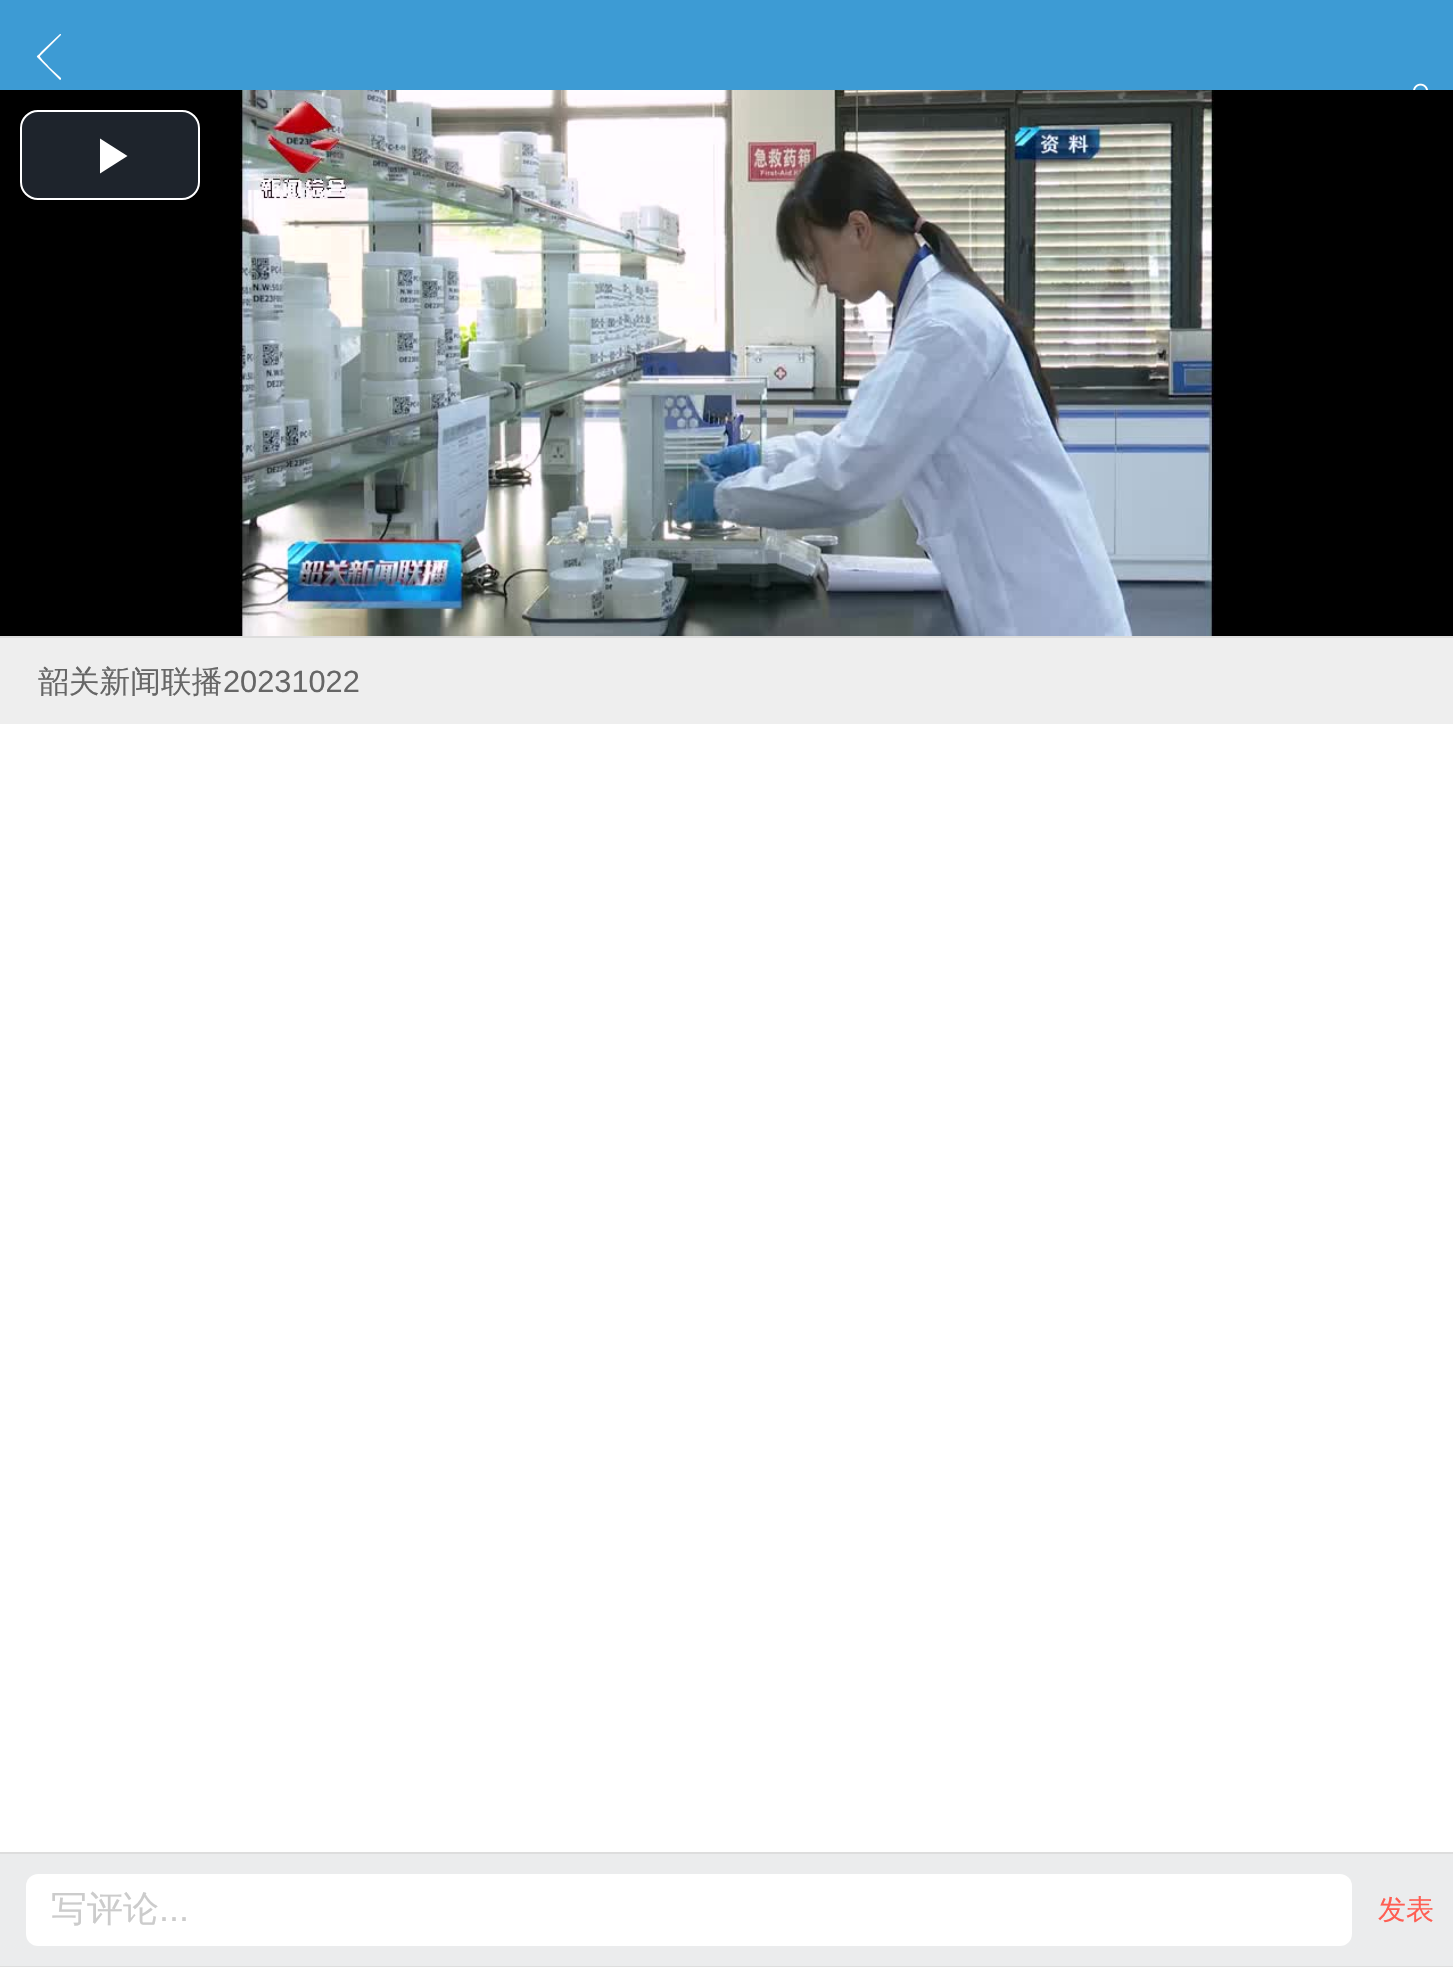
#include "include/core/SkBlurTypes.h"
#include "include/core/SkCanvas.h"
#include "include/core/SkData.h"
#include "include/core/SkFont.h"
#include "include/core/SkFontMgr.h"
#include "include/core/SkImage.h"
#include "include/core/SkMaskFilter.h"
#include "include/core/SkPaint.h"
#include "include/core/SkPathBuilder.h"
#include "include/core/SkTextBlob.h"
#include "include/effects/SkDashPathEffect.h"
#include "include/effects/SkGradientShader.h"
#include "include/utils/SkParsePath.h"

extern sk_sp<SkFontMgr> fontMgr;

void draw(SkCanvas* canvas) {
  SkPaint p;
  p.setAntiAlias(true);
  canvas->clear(SK_ColorWHITE);
  p.setColor(SkColorSetRGB(61, 155, 212));
  canvas->drawRect(SkRect::MakeLTRB(0, 0, 1453, 90), p);
  p.setColor(SK_ColorWHITE);
  canvas->drawPath(SkPathBuilder().moveTo(40, 56).lineTo(61, 35).cubicTo(61, 34, 61, 34, 60, 34).lineTo(41, 52).cubicTo(40, 54, 36, 56, 37, 57).lineTo(60, 80).cubicTo(61, 80, 61, 79, 61, 78).lineTo(49, 67).cubicTo(48, 65, 39, 57, 40, 56).close().detach(), p);
  canvas->drawImageRect(SkImages::DeferredFromEncodedData(SkData::MakeFromFileName("images/1.png")), SkRect::MakeLTRB(1413, 83, 1428, 90), SkSamplingOptions());
  p.setColor(SK_ColorBLACK);
  canvas->drawRect(SkRect::MakeLTRB(0, 90, 1453, 636), p);
  canvas->drawImageRect(SkImages::DeferredFromEncodedData(SkData::MakeFromFileName("images/2.png")), SkRect::MakeLTRB(240, 90, 1214, 636), SkSamplingOptions());
  p.setColor(SkColorSetRGB(30, 36, 44));
  canvas->drawRoundRect(SkRect::MakeLTRB(21, 111, 199, 199), 17, 17, p);
  p.setStyle(SkPaint::kStroke_Style);
  p.setStrokeWidth(2);
  p.setColor(SK_ColorWHITE);
  canvas->drawRoundRect(SkRect::MakeLTRB(21, 111, 199, 199), 17, 17, p);
  p.setStyle(SkPaint::kFill_Style);
  canvas->drawPath(SkPathBuilder().moveTo(100, 138.5f).lineTo(100, 173.5f).lineTo(127.5f, 156).close().detach(), p);
  p.setColor(SkColorSetRGB(221, 221, 221));
  canvas->drawRect(SkRect::MakeLTRB(0, 636, 1453, 638), p);
  p.setColor(SkColorSetRGB(238, 238, 238));
  canvas->drawRect(SkRect::MakeLTRB(0, 638, 1453, 724), p);
  p.setColor(SkColorSetRGB(221, 221, 221));
  canvas->drawRect(SkRect::MakeLTRB(0, 1852, 1453, 1854), p);
  p.setColor(SkColorSetRGB(235, 236, 237));
  canvas->drawRect(SkRect::MakeLTRB(0, 1854, 1453, 1966), p);
  p.setColor(SkColorSetRGB(221, 221, 221));
  canvas->drawRect(SkRect::MakeLTRB(0, 1966, 1453, 1967), p);
  p.setColor(SK_ColorWHITE);
  canvas->drawRoundRect(SkRect::MakeLTRB(26, 1874, 1352, 1946), 12, 12, p);
  SkFont font1(fontMgr->matchFamilyStyle("WenQuanYi Zen Hei", SkFontStyle(500, SkFontStyle::kNormal_Width, SkFontStyle::kUpright_Slant)), 30.75f);
  font1.setSubpixel(true);
  p.setColor(SkColorSetRGB(102, 102, 102));
  canvas->drawString("韶关新闻联播", 38, 692, font1, p);
  SkFont font2(fontMgr->matchFamilyStyle("Liberation Sans", SkFontStyle::Normal()), 30.75f);
  font2.setSubpixel(true);
  canvas->drawString("20231022", 223, 692, font2, p);
  SkFont font3(fontMgr->matchFamilyStyle("WenQuanYi Zen Hei", SkFontStyle(500, SkFontStyle::kNormal_Width, SkFontStyle::kUpright_Slant)), 36);
  font3.setSubpixel(true);
  p.setColor(SkColorSetRGB(204, 204, 204));
  canvas->drawString("写评论", 51, 1921, font3, p);
  SkFont font4(fontMgr->matchFamilyStyle("Liberation Sans", SkFontStyle::Normal()), 36);
  font4.setSubpixel(true);
  canvas->drawString("...", 159, 1921, font4, p);
  SkFont font5(fontMgr->matchFamilyStyle("WenQuanYi Zen Hei", SkFontStyle(500, SkFontStyle::kNormal_Width, SkFontStyle::kUpright_Slant)), 28);
  font5.setSubpixel(true);
  p.setColor(SkColorSetRGB(255, 94, 83));
  canvas->drawString("发表", 1378, 1919, font5, p);
}
